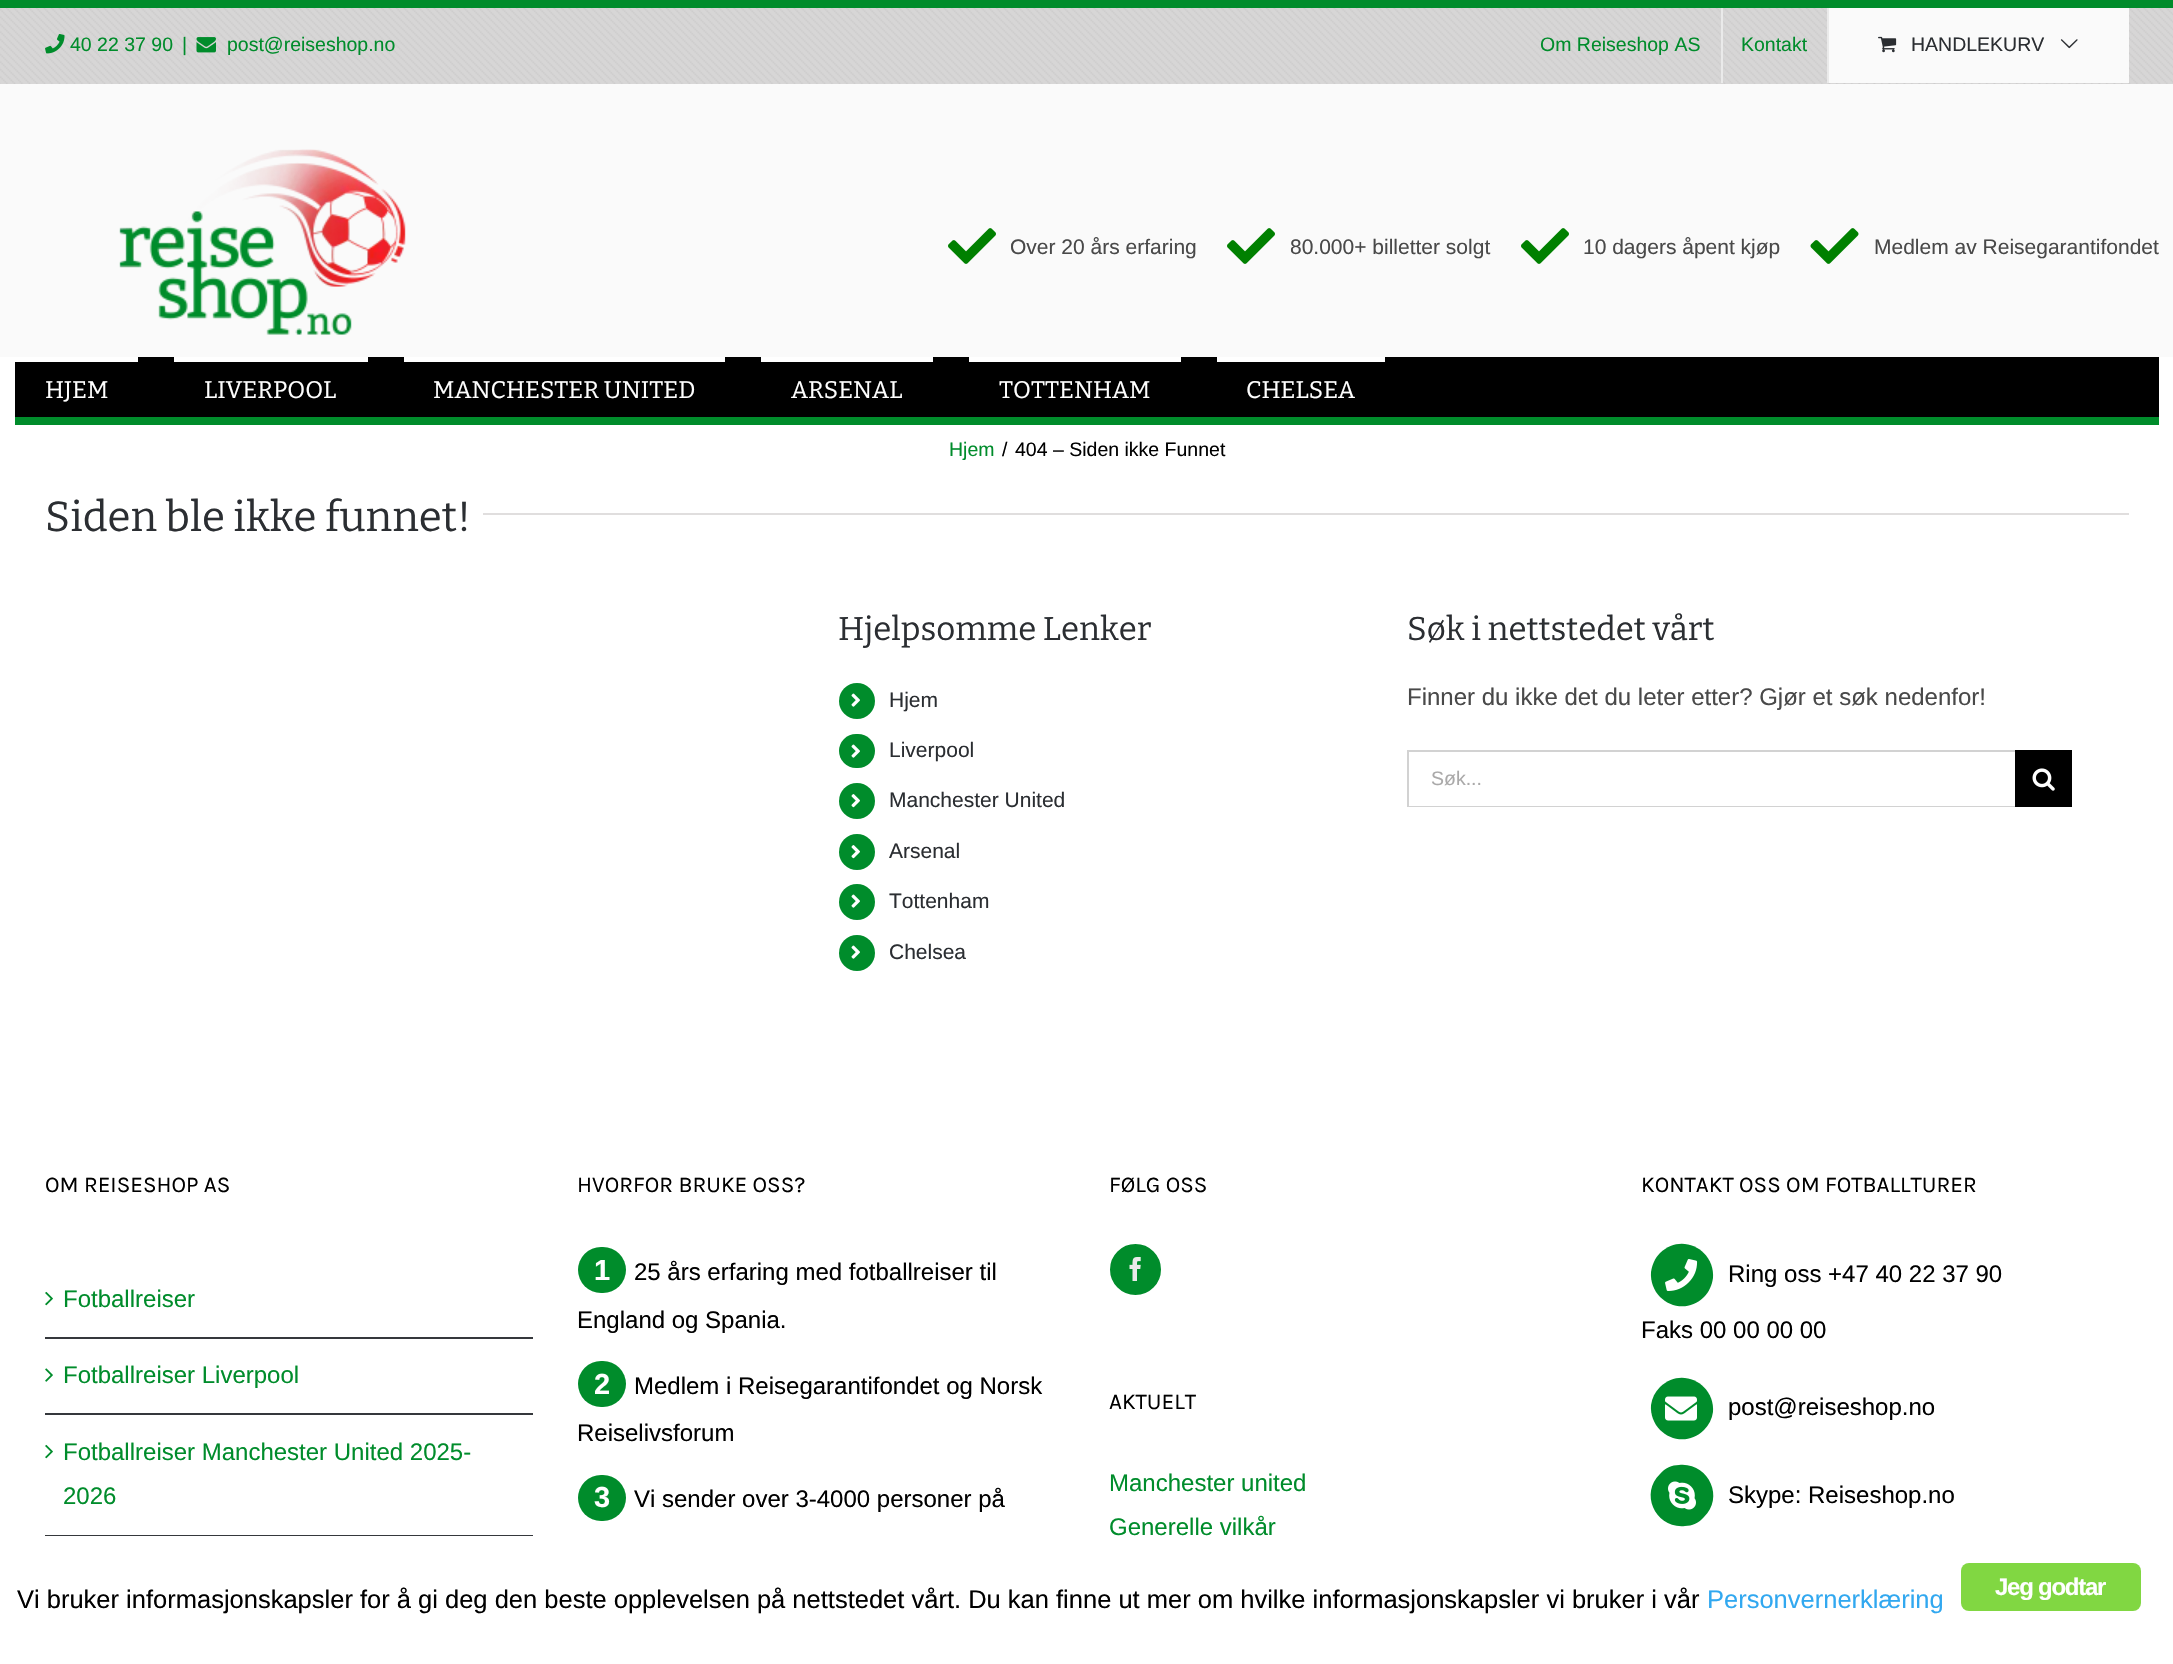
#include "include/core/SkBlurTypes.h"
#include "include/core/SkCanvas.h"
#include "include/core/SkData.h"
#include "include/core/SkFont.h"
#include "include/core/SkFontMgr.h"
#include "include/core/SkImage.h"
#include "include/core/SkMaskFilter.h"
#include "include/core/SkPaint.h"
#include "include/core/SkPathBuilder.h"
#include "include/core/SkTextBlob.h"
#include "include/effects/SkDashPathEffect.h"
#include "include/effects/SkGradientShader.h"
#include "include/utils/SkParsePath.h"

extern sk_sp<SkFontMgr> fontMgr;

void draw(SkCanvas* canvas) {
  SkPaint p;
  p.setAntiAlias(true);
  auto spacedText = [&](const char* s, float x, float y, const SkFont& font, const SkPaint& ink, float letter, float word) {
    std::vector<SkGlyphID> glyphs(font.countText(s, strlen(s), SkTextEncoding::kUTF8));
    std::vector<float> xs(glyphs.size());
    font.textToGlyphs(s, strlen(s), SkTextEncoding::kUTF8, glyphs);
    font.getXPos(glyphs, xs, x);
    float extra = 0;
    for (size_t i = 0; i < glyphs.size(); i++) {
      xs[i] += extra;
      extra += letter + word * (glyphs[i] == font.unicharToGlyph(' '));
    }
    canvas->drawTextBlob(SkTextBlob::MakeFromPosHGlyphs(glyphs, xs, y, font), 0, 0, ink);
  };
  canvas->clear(SkColorSetRGB(215, 214, 214));
  canvas->drawImageRect(SkImages::DeferredFromEncodedData(SkData::MakeFromFileName("images/1.png")), SkRect::MakeLTRB(0, 8, 2173, 84), SkSamplingOptions());
  p.setColor(SkColorSetRGB(0, 140, 43));
  canvas->drawRect(SkRect::MakeLTRB(0, 0, 2173, 8), p);
  canvas->drawImageRect(SkImages::DeferredFromEncodedData(SkData::MakeFromFileName("images/2.png")), SkRect::MakeLTRB(45, 34, 65, 54), SkSamplingOptions());
  canvas->drawImageRect(SkImages::DeferredFromEncodedData(SkData::MakeFromFileName("images/3.png")), SkRect::MakeLTRB(196, 37, 216, 53), SkSamplingOptions());
  p.setColor(SkColorSetRGB(234, 234, 234));
  canvas->drawRect(SkRect::MakeLTRB(1721, 8, 1723, 83), p);
  canvas->drawRect(SkRect::MakeLTRB(1827, 8, 1829, 83), p);
  p.setColor(SkColorSetRGB(250, 250, 250));
  canvas->drawRect(SkRect::MakeLTRB(1829, 8, 2129, 83), p);
  canvas->drawImageRect(SkImages::DeferredFromEncodedData(SkData::MakeFromFileName("images/4.png")), SkRect::MakeLTRB(1878, 36, 1897, 53), SkSamplingOptions());
  canvas->drawImageRect(SkImages::DeferredFromEncodedData(SkData::MakeFromFileName("images/5.png")), SkRect::MakeLTRB(2060, 39, 2078, 49), SkSamplingOptions());
  canvas->drawRect(SkRect::MakeLTRB(0, 84, 2173, 357), p);
  canvas->drawImageRect(SkImages::DeferredFromEncodedData(SkData::MakeFromFileName("images/6.png")), SkRect::MakeLTRB(119, 149, 406, 335), SkSamplingOptions());
  canvas->drawImageRect(SkImages::DeferredFromEncodedData(SkData::MakeFromFileName("images/7.png")), SkRect::MakeLTRB(948, 228, 996, 264), SkSamplingOptions());
  canvas->drawImageRect(SkImages::DeferredFromEncodedData(SkData::MakeFromFileName("images/7.png")), SkRect::MakeLTRB(1227, 228, 1275, 264), SkSamplingOptions());
  canvas->drawImageRect(SkImages::DeferredFromEncodedData(SkData::MakeFromFileName("images/7.png")), SkRect::MakeLTRB(1521, 228, 1569, 264), SkSamplingOptions());
  canvas->drawImageRect(SkImages::DeferredFromEncodedData(SkData::MakeFromFileName("images/8.png")), SkRect::MakeLTRB(1810, 228, 1859, 264), SkSamplingOptions());
  p.setColor(SK_ColorWHITE);
  canvas->drawRect(SkRect::MakeLTRB(0, 357, 2173, 1664), p);
  p.setColor(SK_ColorBLACK);
  canvas->drawRect(SkRect::MakeLTRB(15, 357, 2159, 417), p);
  p.setColor(SkColorSetRGB(0, 140, 43));
  canvas->drawRect(SkRect::MakeLTRB(15, 417, 2159, 425), p);
  p.setColor(SK_ColorWHITE);
  canvas->drawRect(SkRect::MakeLTRB(15, 357, 138, 362), p);
  canvas->drawRect(SkRect::MakeLTRB(174, 357, 368, 362), p);
  canvas->drawRect(SkRect::MakeLTRB(404, 357, 725, 362), p);
  canvas->drawRect(SkRect::MakeLTRB(761, 357, 933, 362), p);
  canvas->drawRect(SkRect::MakeLTRB(969, 357, 1181, 362), p);
  canvas->drawRect(SkRect::MakeLTRB(1217, 357, 1385, 362), p);
  p.setColor(SkColorSetRGB(224, 222, 222));
  canvas->drawRect(SkRect::MakeLTRB(483, 513, 2129, 515), p);
  p.setColor(SkColorSetRGB(0, 140, 43));
  canvas->drawCircle(857, 701, 18, p);
  canvas->drawImageRect(SkImages::DeferredFromEncodedData(SkData::MakeFromFileName("images/9.png")), SkRect::MakeLTRB(851, 693, 860, 707), SkSamplingOptions());
  canvas->drawRoundRect(SkRect::MakeLTRB(839, 734, 875, 768), 17, 17, p);
  canvas->drawImageRect(SkImages::DeferredFromEncodedData(SkData::MakeFromFileName("images/9.png")), SkRect::MakeLTRB(851, 744, 860, 758), SkSamplingOptions());
  canvas->drawCircle(857, 801, 18, p);
  canvas->drawImageRect(SkImages::DeferredFromEncodedData(SkData::MakeFromFileName("images/10.png")), SkRect::MakeLTRB(851, 794, 860, 808), SkSamplingOptions());
  canvas->drawCircle(857, 852, 18, p);
  canvas->drawImageRect(SkImages::DeferredFromEncodedData(SkData::MakeFromFileName("images/10.png")), SkRect::MakeLTRB(851, 845, 860, 859), SkSamplingOptions());
  canvas->drawCircle(857, 902, 18, p);
  canvas->drawImageRect(SkImages::DeferredFromEncodedData(SkData::MakeFromFileName("images/9.png")), SkRect::MakeLTRB(851, 894, 860, 908), SkSamplingOptions());
  canvas->drawCircle(857, 953, 18, p);
  canvas->drawImageRect(SkImages::DeferredFromEncodedData(SkData::MakeFromFileName("images/9.png")), SkRect::MakeLTRB(851, 945, 860, 959), SkSamplingOptions());
  p.setColor(SkColorSetRGB(210, 210, 210));
  canvas->drawRect(SkRect::MakeLTRB(1407, 750, 2015, 752), p);
  canvas->drawRect(SkRect::MakeLTRB(1407, 806, 2015, 807), p);
  canvas->drawRect(SkRect::MakeLTRB(1407, 750, 1409, 807), p);
  p.setColor(SK_ColorBLACK);
  canvas->drawRect(SkRect::MakeLTRB(2015, 750, 2072, 807), p);
  canvas->drawImageRect(SkImages::DeferredFromEncodedData(SkData::MakeFromFileName("images/11.png")), SkRect::MakeLTRB(2032, 768, 2055, 791), SkSamplingOptions());
  p.setColor(SkColorSetRGB(53, 56, 60));
  canvas->drawRect(SkRect::MakeLTRB(45, 1337, 533, 1339), p);
  canvas->drawImageRect(SkImages::DeferredFromEncodedData(SkData::MakeFromFileName("images/12.png")), SkRect::MakeLTRB(45, 1291, 53, 1306), SkSamplingOptions());
  canvas->drawRect(SkRect::MakeLTRB(45, 1413, 533, 1415), p);
  canvas->drawImageRect(SkImages::DeferredFromEncodedData(SkData::MakeFromFileName("images/13.png")), SkRect::MakeLTRB(45, 1368, 53, 1382), SkSamplingOptions());
  canvas->drawRect(SkRect::MakeLTRB(45, 1535, 533, 1536), p);
  canvas->drawImageRect(SkImages::DeferredFromEncodedData(SkData::MakeFromFileName("images/12.png")), SkRect::MakeLTRB(45, 1444, 53, 1459), SkSamplingOptions());
  p.setColor(SkColorSetRGB(0, 140, 43));
  canvas->drawRoundRect(SkRect::MakeLTRB(578, 1247, 626, 1293), 23, 23, p);
  canvas->drawRoundRect(SkRect::MakeLTRB(578, 1361, 626, 1407), 23, 23, p);
  canvas->drawRoundRect(SkRect::MakeLTRB(578, 1475, 626, 1521), 23, 23, p);
  canvas->drawCircle(1135.5f, 1269.5f, 24.5f, p);
  p.setStyle(SkPaint::kStroke_Style);
  p.setStrokeWidth(2);
  canvas->drawCircle(1135.5f, 1269.5f, 24.5f, p);
  canvas->drawImageRect(SkImages::DeferredFromEncodedData(SkData::MakeFromFileName("images/14.png")), SkRect::MakeLTRB(1129, 1257, 1141, 1281), SkSamplingOptions());
  p.setStyle(SkPaint::kFill_Style);
  canvas->drawPath(SkPathBuilder().moveTo(1660, 1253).cubicTo(1681, 1232, 1715, 1249, 1713, 1278).cubicTo(1712, 1285, 1709, 1292, 1704, 1297).cubicTo(1683, 1318, 1649, 1301, 1651, 1272).cubicTo(1652, 1265, 1655, 1258, 1660, 1253).close().detach(), p);
  canvas->drawImageRect(SkImages::DeferredFromEncodedData(SkData::MakeFromFileName("images/15.png")), SkRect::MakeLTRB(1665, 1259, 1698, 1291), SkSamplingOptions());
  canvas->drawPath(SkPathBuilder().moveTo(1660, 1387).cubicTo(1681, 1366, 1715, 1383, 1713, 1412).cubicTo(1712, 1419, 1709, 1425, 1704, 1430).cubicTo(1683, 1451, 1649, 1434, 1651, 1405).cubicTo(1652, 1398, 1655, 1392, 1660, 1387).close().detach(), p);
  canvas->drawImageRect(SkImages::DeferredFromEncodedData(SkData::MakeFromFileName("images/16.png")), SkRect::MakeLTRB(1665, 1396, 1697, 1421), SkSamplingOptions());
  canvas->drawPath(SkPathBuilder().moveTo(1660, 1474).cubicTo(1665, 1468, 1672, 1465, 1679, 1465).cubicTo(1708, 1462, 1725, 1497, 1704, 1517).cubicTo(1699, 1523, 1692, 1526, 1685, 1526).cubicTo(1656, 1529, 1639, 1494, 1660, 1474).close().detach(), p);
  canvas->drawImageRect(SkImages::DeferredFromEncodedData(SkData::MakeFromFileName("images/17.png")), SkRect::MakeLTRB(1668, 1481, 1696, 1510), SkSamplingOptions());
  p.setColor(SkColorSetRGB(129, 215, 66));
  canvas->drawRoundRect(SkRect::MakeLTRB(1961, 1563, 2141, 1611), 8, 8, p);
  SkFont font1(fontMgr->matchFamilyStyle("Liberation Sans", SkFontStyle::Normal()), 19.5f);
  font1.setSubpixel(true);
  p.setColor(SkColorSetRGB(0, 140, 43));
  canvas->drawString("40 22 37 90", 70, 51, font1, p);
  canvas->drawString("|", 182, 51, font1, p);
  canvas->drawString("post@reiseshop.no", 227, 51, font1, p);
  canvas->drawString("Om Reiseshop AS", 1540, 51, font1, p);
  canvas->drawString("Kontakt", 1741, 51, font1, p);
  p.setColor(SkColorSetRGB(43, 46, 50));
  canvas->drawString("HANDLEKURV", 1911, 51, font1, p);
  SkFont font2(fontMgr->matchFamilyStyle("Liberation Sans", SkFontStyle::Normal()), 21);
  font2.setSubpixel(true);
  p.setColor(SkColorSetRGB(73, 73, 73));
  canvas->drawString("Over 20 års erfaring", 1010, 254, font2, p);
  canvas->drawString("80.000+ billetter solgt", 1290, 254, font2, p);
  canvas->drawString("10 dagers åpent kjøp", 1583, 254, font2, p);
  canvas->drawString("Medlem av Reisegarantifondet", 1874, 254, font2, p);
  SkFont font3(fontMgr->matchFamilyStyle("Bitter", SkFontStyle::Normal()), 24);
  font3.setSubpixel(true);
  p.setColor(SK_ColorWHITE);
  canvas->drawString("HJEM", 45, 398, font3, p);
  canvas->drawString("LIVERPOOL", 204, 398, font3, p);
  canvas->drawString("MANCHESTER UNITED", 433, 398, font3, p);
  canvas->drawString("ARSENAL", 791, 398, font3, p);
  canvas->drawString("TOTTENHAM", 999, 398, font3, p);
  canvas->drawString("CHELSEA", 1246, 398, font3, p);
  p.setColor(SkColorSetRGB(0, 140, 43));
  canvas->drawString("Hjem", 949, 456, font1, p);
  p.setColor(SK_ColorBLACK);
  canvas->drawString("/", 1002, 456, font1, p);
  canvas->drawString("404 – Siden ikke Funnet", 1015, 456, font1, p);
  SkFont font4(fontMgr->matchFamilyStyle("Bitter", SkFontStyle::Normal()), 42);
  font4.setSubpixel(true);
  p.setColor(SkColorSetRGB(43, 46, 50));
  canvas->drawString("Siden ble ikke funnet!", 45, 531, font4, p);
  SkFont font5(fontMgr->matchFamilyStyle("Bitter", SkFontStyle::Normal()), 33);
  font5.setSubpixel(true);
  canvas->drawString("Hjelpsomme Lenker", 838, 640, font5, p);
  canvas->drawString("Hjem", 889, 707, font2, p);
  canvas->drawString("Liverpool", 889, 757, font2, p);
  canvas->drawString("Manchester United", 889, 807, font2, p);
  canvas->drawString("Arsenal", 889, 858, font2, p);
  canvas->drawString("Tottenham", 889, 908, font2, p);
  canvas->drawString("Chelsea", 889, 959, font2, p);
  canvas->drawString("Søk i nettstedet vårt", 1407, 640, font5, p);
  SkFont font6(fontMgr->matchFamilyStyle("Liberation Sans", SkFontStyle::Normal()), 24);
  font6.setSubpixel(true);
  p.setColor(SkColorSetRGB(73, 73, 73));
  canvas->drawString("Finner du ikke det du leter etter? Gjør et søk nedenfor!", 1407, 705, font6, p);
  p.setColor(SkColorSetRGB(170, 169, 169));
  canvas->drawString("Søk...", 1431, 785, font1, p);
  SkFont font7(fontMgr->matchFamilyStyle("Karla", SkFontStyle::Normal()), 22.5f);
  font7.setSubpixel(true);
  p.setColor(SK_ColorBLACK);
  canvas->drawString("OM REISESHOP AS", 45, 1192, font7, p);
  p.setColor(SkColorSetRGB(0, 140, 43));
  canvas->drawString("Fotballreiser", 63, 1307, font6, p);
  canvas->drawString("Fotballreiser Liverpool", 63, 1383, font6, p);
  canvas->drawString("Fotballreiser Manchester United 2025-", 63, 1460, font6, p);
  canvas->drawString("2026", 63, 1504, font6, p);
  p.setColor(SK_ColorBLACK);
  canvas->drawString("HVORFOR BRUKE OSS?", 577, 1192, font7, p);
  SkFont font8(fontMgr->matchFamilyStyle("Liberation Sans", SkFontStyle::Bold()), 29);
  font8.setSubpixel(true);
  p.setColor(SK_ColorWHITE);
  canvas->drawString("1", 594, 1280, font8, p);
  p.setColor(SK_ColorBLACK);
  canvas->drawString("25 års erfaring med fotballreiser til", 634, 1280, font6, p);
  canvas->drawString("England og Spania.", 577, 1328, font6, p);
  p.setColor(SK_ColorWHITE);
  canvas->drawString("2", 594, 1394, font8, p);
  p.setColor(SK_ColorBLACK);
  canvas->drawString("Medlem i Reisegarantifondet og Norsk", 634, 1394, font6, p);
  canvas->drawString("Reiselivsforum", 577, 1441, font6, p);
  p.setColor(SK_ColorWHITE);
  canvas->drawString("3", 594, 1507, font8, p);
  p.setColor(SK_ColorBLACK);
  canvas->drawString("Vi sender over 3-4000 personer på", 634, 1507, font6, p);
  canvas->drawString("FØLG OSS", 1109, 1192, font7, p);
  canvas->drawString("AKTUELT", 1109, 1409, font7, p);
  p.setColor(SkColorSetRGB(0, 140, 43));
  canvas->drawString("Manchester united", 1109, 1491, font6, p);
  canvas->drawString("Generelle vilkår", 1109, 1535, font6, p);
  p.setColor(SK_ColorBLACK);
  canvas->drawString("KONTAKT OSS OM FOTBALLTURER", 1641, 1192, font7, p);
  canvas->drawString("Ring oss +47 40 22 37 90", 1728, 1282, font6, p);
  canvas->drawString("Faks 00 00 00 00", 1641, 1338, font6, p);
  canvas->drawString("post@reiseshop.no", 1728, 1415, font6, p);
  canvas->drawString("Skype: Reiseshop.no", 1728, 1503, font6, p);
  SkFont font9(fontMgr->matchFamilyStyle("Liberation Sans", SkFontStyle::Normal()), 25.5f);
  font9.setSubpixel(true);
  canvas->drawString("Vi bruker informasjonskapsler for å gi deg den beste opplevelsen på nettstedet vårt. Du kan finne ut mer om hvilke informasjonskapsler vi bruker i vår", 17, 1608, font9, p);
  p.setColor(SkColorSetRGB(49, 168, 240));
  canvas->drawString("Personvernerklæring", 1707, 1608, font9, p);
  SkFont font10(fontMgr->matchFamilyStyle("Liberation Sans", SkFontStyle::Bold()), 24);
  font10.setSubpixel(true);
  p.setColor(SK_ColorWHITE);
  spacedText("Jeg godtar", 1995, 1595, font10, p, -1.25f, 0);
}
